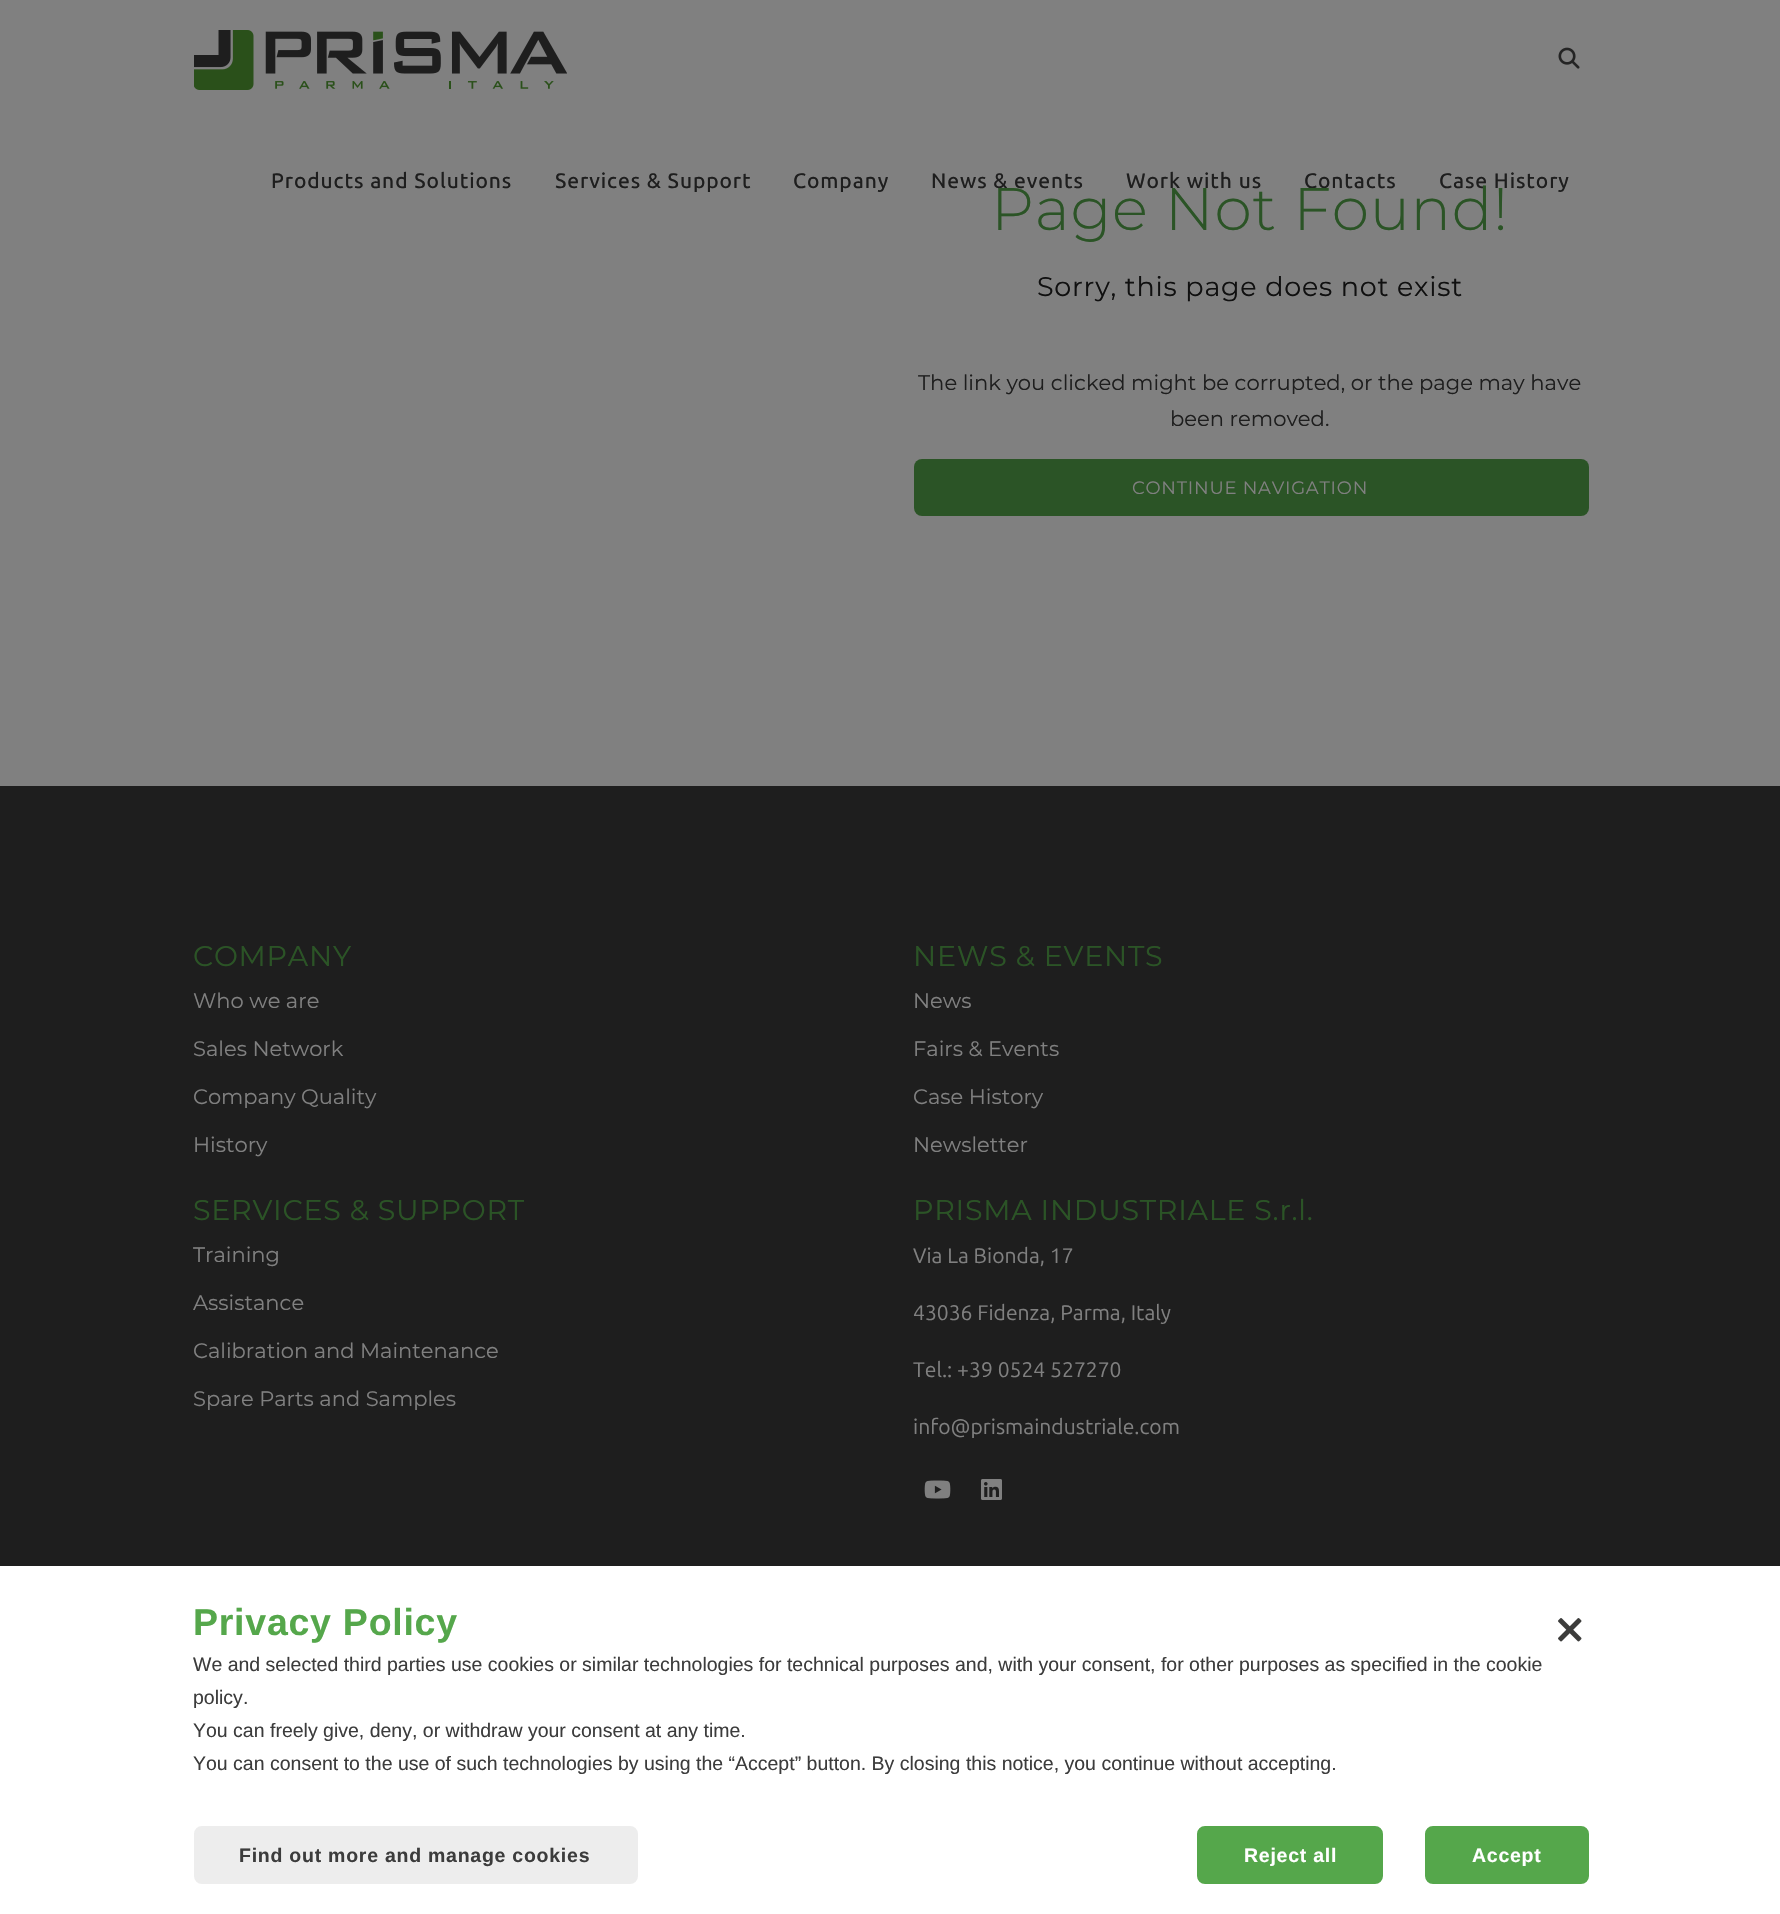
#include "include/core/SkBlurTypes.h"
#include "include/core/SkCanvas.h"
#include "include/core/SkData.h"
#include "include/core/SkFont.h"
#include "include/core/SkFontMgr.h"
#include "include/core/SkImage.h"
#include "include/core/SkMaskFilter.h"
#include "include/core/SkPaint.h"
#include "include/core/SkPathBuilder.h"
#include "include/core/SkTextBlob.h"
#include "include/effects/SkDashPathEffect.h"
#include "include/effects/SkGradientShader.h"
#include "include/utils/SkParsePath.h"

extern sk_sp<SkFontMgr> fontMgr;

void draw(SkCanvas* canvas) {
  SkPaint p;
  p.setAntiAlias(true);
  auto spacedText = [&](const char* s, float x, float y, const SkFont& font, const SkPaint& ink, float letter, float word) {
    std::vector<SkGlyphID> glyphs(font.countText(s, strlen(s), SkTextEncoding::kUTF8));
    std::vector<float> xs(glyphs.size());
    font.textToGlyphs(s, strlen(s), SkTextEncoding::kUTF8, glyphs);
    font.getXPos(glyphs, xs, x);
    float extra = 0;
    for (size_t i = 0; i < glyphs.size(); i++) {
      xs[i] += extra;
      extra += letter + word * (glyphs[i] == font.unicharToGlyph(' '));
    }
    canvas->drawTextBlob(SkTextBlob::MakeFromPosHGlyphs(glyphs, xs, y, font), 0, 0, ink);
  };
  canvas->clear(SkColorSetRGB(128, 128, 128));
  canvas->drawImageRect(SkImages::DeferredFromEncodedData(SkData::MakeFromFileName("images/1.png")), SkRect::MakeLTRB(194, 30, 567, 90), SkSamplingOptions());
  canvas->drawImageRect(SkImages::DeferredFromEncodedData(SkData::MakeFromFileName("images/2.png")), SkRect::MakeLTRB(1558, 47, 1580, 69), SkSamplingOptions());
  p.setColor(SkColorSetRGB(43, 84, 38));
  canvas->drawRoundRect(SkRect::MakeLTRB(914, 459, 1589, 516), 8, 8, p);
  p.setColor(SkColorSetRGB(30, 30, 30));
  canvas->drawRect(SkRect::MakeLTRB(0, 786, 1780, 1566), p);
  canvas->drawImageRect(SkImages::DeferredFromEncodedData(SkData::MakeFromFileName("images/3.png")), SkRect::MakeLTRB(924, 1480, 951, 1499), SkSamplingOptions());
  canvas->drawImageRect(SkImages::DeferredFromEncodedData(SkData::MakeFromFileName("images/4.png")), SkRect::MakeLTRB(981, 1479, 1002, 1500), SkSamplingOptions());
  p.setColor(SK_ColorWHITE);
  canvas->drawRect(SkRect::MakeLTRB(0, 1566, 1780, 1914), p);
  canvas->drawImageRect(SkImages::DeferredFromEncodedData(SkData::MakeFromFileName("images/5.png")), SkRect::MakeLTRB(1558, 1618, 1582, 1642), SkSamplingOptions());
  p.setColor(SkColorSetRGB(237, 237, 237));
  canvas->drawRoundRect(SkRect::MakeLTRB(195, 1827, 637, 1883), 7, 7, p);
  p.setStyle(SkPaint::kStroke_Style);
  p.setStrokeWidth(2);
  canvas->drawRoundRect(SkRect::MakeLTRB(195, 1827, 637, 1883), 7, 7, p);
  p.setStyle(SkPaint::kFill_Style);
  p.setColor(SkColorSetRGB(85, 167, 75));
  canvas->drawRoundRect(SkRect::MakeLTRB(1198, 1827, 1382, 1883), 7, 7, p);
  p.setStyle(SkPaint::kStroke_Style);
  canvas->drawRoundRect(SkRect::MakeLTRB(1198, 1827, 1382, 1883), 7, 7, p);
  p.setStyle(SkPaint::kFill_Style);
  canvas->drawRoundRect(SkRect::MakeLTRB(1426, 1827, 1588, 1883), 7, 7, p);
  p.setStyle(SkPaint::kStroke_Style);
  canvas->drawRoundRect(SkRect::MakeLTRB(1426, 1827, 1588, 1883), 7, 7, p);
  SkFont font1(fontMgr->matchFamilyStyle("Ubuntu", SkFontStyle(500, SkFontStyle::kNormal_Width, SkFontStyle::kUpright_Slant)), 21);
  font1.setSubpixel(true);
  p.setStyle(SkPaint::kFill_Style);
  p.setColor(SkColorSetRGB(30, 30, 30));
  spacedText("Products and Solutions", 271, 188, font1, p, 0.9f, 0);
  spacedText("Services & Support", 555, 188, font1, p, 0.9f, 0);
  spacedText("Company", 793, 188, font1, p, 0.9f, 0);
  spacedText("News & events", 931, 188, font1, p, 0.9f, 0);
  spacedText("Work with us", 1126, 188, font1, p, 0.9f, 0);
  spacedText("Contacts", 1304, 188, font1, p, 0.9f, 0);
  spacedText("Case History", 1439, 188, font1, p, 0.9f, 0);
  SkFont font2(fontMgr->matchFamilyStyle("Montserrat", SkFontStyle(300, SkFontStyle::kNormal_Width, SkFontStyle::kUpright_Slant)), 60);
  font2.setSubpixel(true);
  p.setColor(SkColorSetRGB(43, 84, 38));
  spacedText("Page Not Found!", 991, 230, font2, p, 0.75f, 0);
  SkFont font3(fontMgr->matchFamilyStyle("Montserrat", SkFontStyle::Normal()), 27);
  font3.setSubpixel(true);
  p.setColor(SkColorSetRGB(16, 16, 16));
  spacedText("Sorry, this page does not exist", 1037, 296, font3, p, 0.75f, 0);
  SkFont font4(fontMgr->matchFamilyStyle("Montserrat", SkFontStyle::Normal()), 21.1f);
  font4.setSubpixel(true);
  p.setColor(SkColorSetRGB(30, 30, 30));
  canvas->drawString("The link you clicked might be corrupted, or the page may have", 918, 390, font4, p);
  canvas->drawString("been removed.", 1170, 426, font4, p);
  SkFont font5(fontMgr->matchFamilyStyle("Montserrat", SkFontStyle::Normal()), 18);
  font5.setSubpixel(true);
  p.setColor(SkColorSetRGB(128, 128, 128));
  spacedText("CONTINUE NAVIGATION", 1132, 494, font5, p, 0.75f, 0);
  SkFont font6(fontMgr->matchFamilyStyle("Montserrat", SkFontStyle::Normal()), 28.5f);
  font6.setSubpixel(true);
  p.setColor(SkColorSetRGB(43, 84, 38));
  spacedText("COMPANY", 193, 966, font6, p, 0.75f, 0);
  SkFont font7(fontMgr->matchFamilyStyle("Montserrat", SkFontStyle::Normal()), 21);
  font7.setSubpixel(true);
  p.setColor(SkColorSetRGB(128, 128, 128));
  canvas->drawString("Who we are", 193, 1008, font7, p);
  canvas->drawString("Sales Network", 193, 1056, font7, p);
  canvas->drawString("Company Quality", 193, 1104, font7, p);
  canvas->drawString("History", 193, 1152, font7, p);
  p.setColor(SkColorSetRGB(43, 84, 38));
  spacedText("NEWS & EVENTS", 913, 966, font6, p, 0.75f, 0);
  p.setColor(SkColorSetRGB(128, 128, 128));
  canvas->drawString("News", 913, 1008, font7, p);
  canvas->drawString("Fairs & Events", 913, 1056, font7, p);
  canvas->drawString("Case History", 913, 1104, font7, p);
  canvas->drawString("Newsletter", 913, 1152, font7, p);
  p.setColor(SkColorSetRGB(43, 84, 38));
  spacedText("SERVICES & SUPPORT", 193, 1220, font6, p, 0.75f, 0);
  p.setColor(SkColorSetRGB(128, 128, 128));
  canvas->drawString("Training", 193, 1262, font7, p);
  canvas->drawString("Assistance", 193, 1310, font7, p);
  canvas->drawString("Calibration and Maintenance", 193, 1358, font7, p);
  canvas->drawString("Spare Parts and Samples", 193, 1406, font7, p);
  p.setColor(SkColorSetRGB(43, 84, 38));
  spacedText("PRISMA INDUSTRIALE S.r.l.", 913, 1220, font6, p, 0.75f, 0);
  SkFont font8(fontMgr->matchFamilyStyle("Ubuntu", SkFontStyle::Normal()), 21.1f);
  font8.setSubpixel(true);
  p.setColor(SkColorSetRGB(128, 128, 128));
  canvas->drawString("Via La Bionda, 17", 913, 1263, font8, p);
  canvas->drawString("43036 Fidenza, Parma, Italy", 913, 1320, font8, p);
  canvas->drawString("Tel.: +39 0524 527270", 913, 1377, font8, p);
  canvas->drawString("info@prismaindustriale.com", 913, 1434, font8, p);
  SkFont font9(fontMgr->matchFamilyStyle("Liberation Sans", SkFontStyle::Bold()), 37.5f);
  font9.setSubpixel(true);
  p.setColor(SkColorSetRGB(85, 167, 75));
  spacedText("Privacy Policy", 193, 1635, font9, p, 0.75f, 0);
  SkFont font10(fontMgr->matchFamilyStyle("Liberation Sans", SkFontStyle::Normal()), 19.5f);
  font10.setSubpixel(true);
  p.setColor(SkColorSetRGB(60, 60, 60));
  canvas->drawString("We and selected third parties use cookies or similar technologies for technical purposes and, with your consent, for other purposes as specified in the", 193, 1671, font10, p);
  canvas->drawString("cookie", 1486, 1671, font10, p);
  canvas->drawString("policy", 193, 1704, font10, p);
  canvas->drawString(".", 243, 1704, font10, p);
  canvas->drawString("You can freely give, deny, or withdraw your consent at any time.", 193, 1737, font10, p);
  canvas->drawString("You can consent to the use of such technologies by using the “Accept” button. By closing this notice, you continue without accepting.", 193, 1770, font10, p);
  SkFont font11(fontMgr->matchFamilyStyle("Liberation Sans", SkFontStyle::Bold()), 19.5f);
  font11.setSubpixel(true);
  spacedText("Find out more and manage cookies", 239, 1862, font11, p, 0.75f, 0);
  p.setColor(SK_ColorWHITE);
  spacedText("Reject all", 1244, 1862, font11, p, 0.75f, 0);
  spacedText("Accept", 1472, 1862, font11, p, 0.75f, 0);
}
